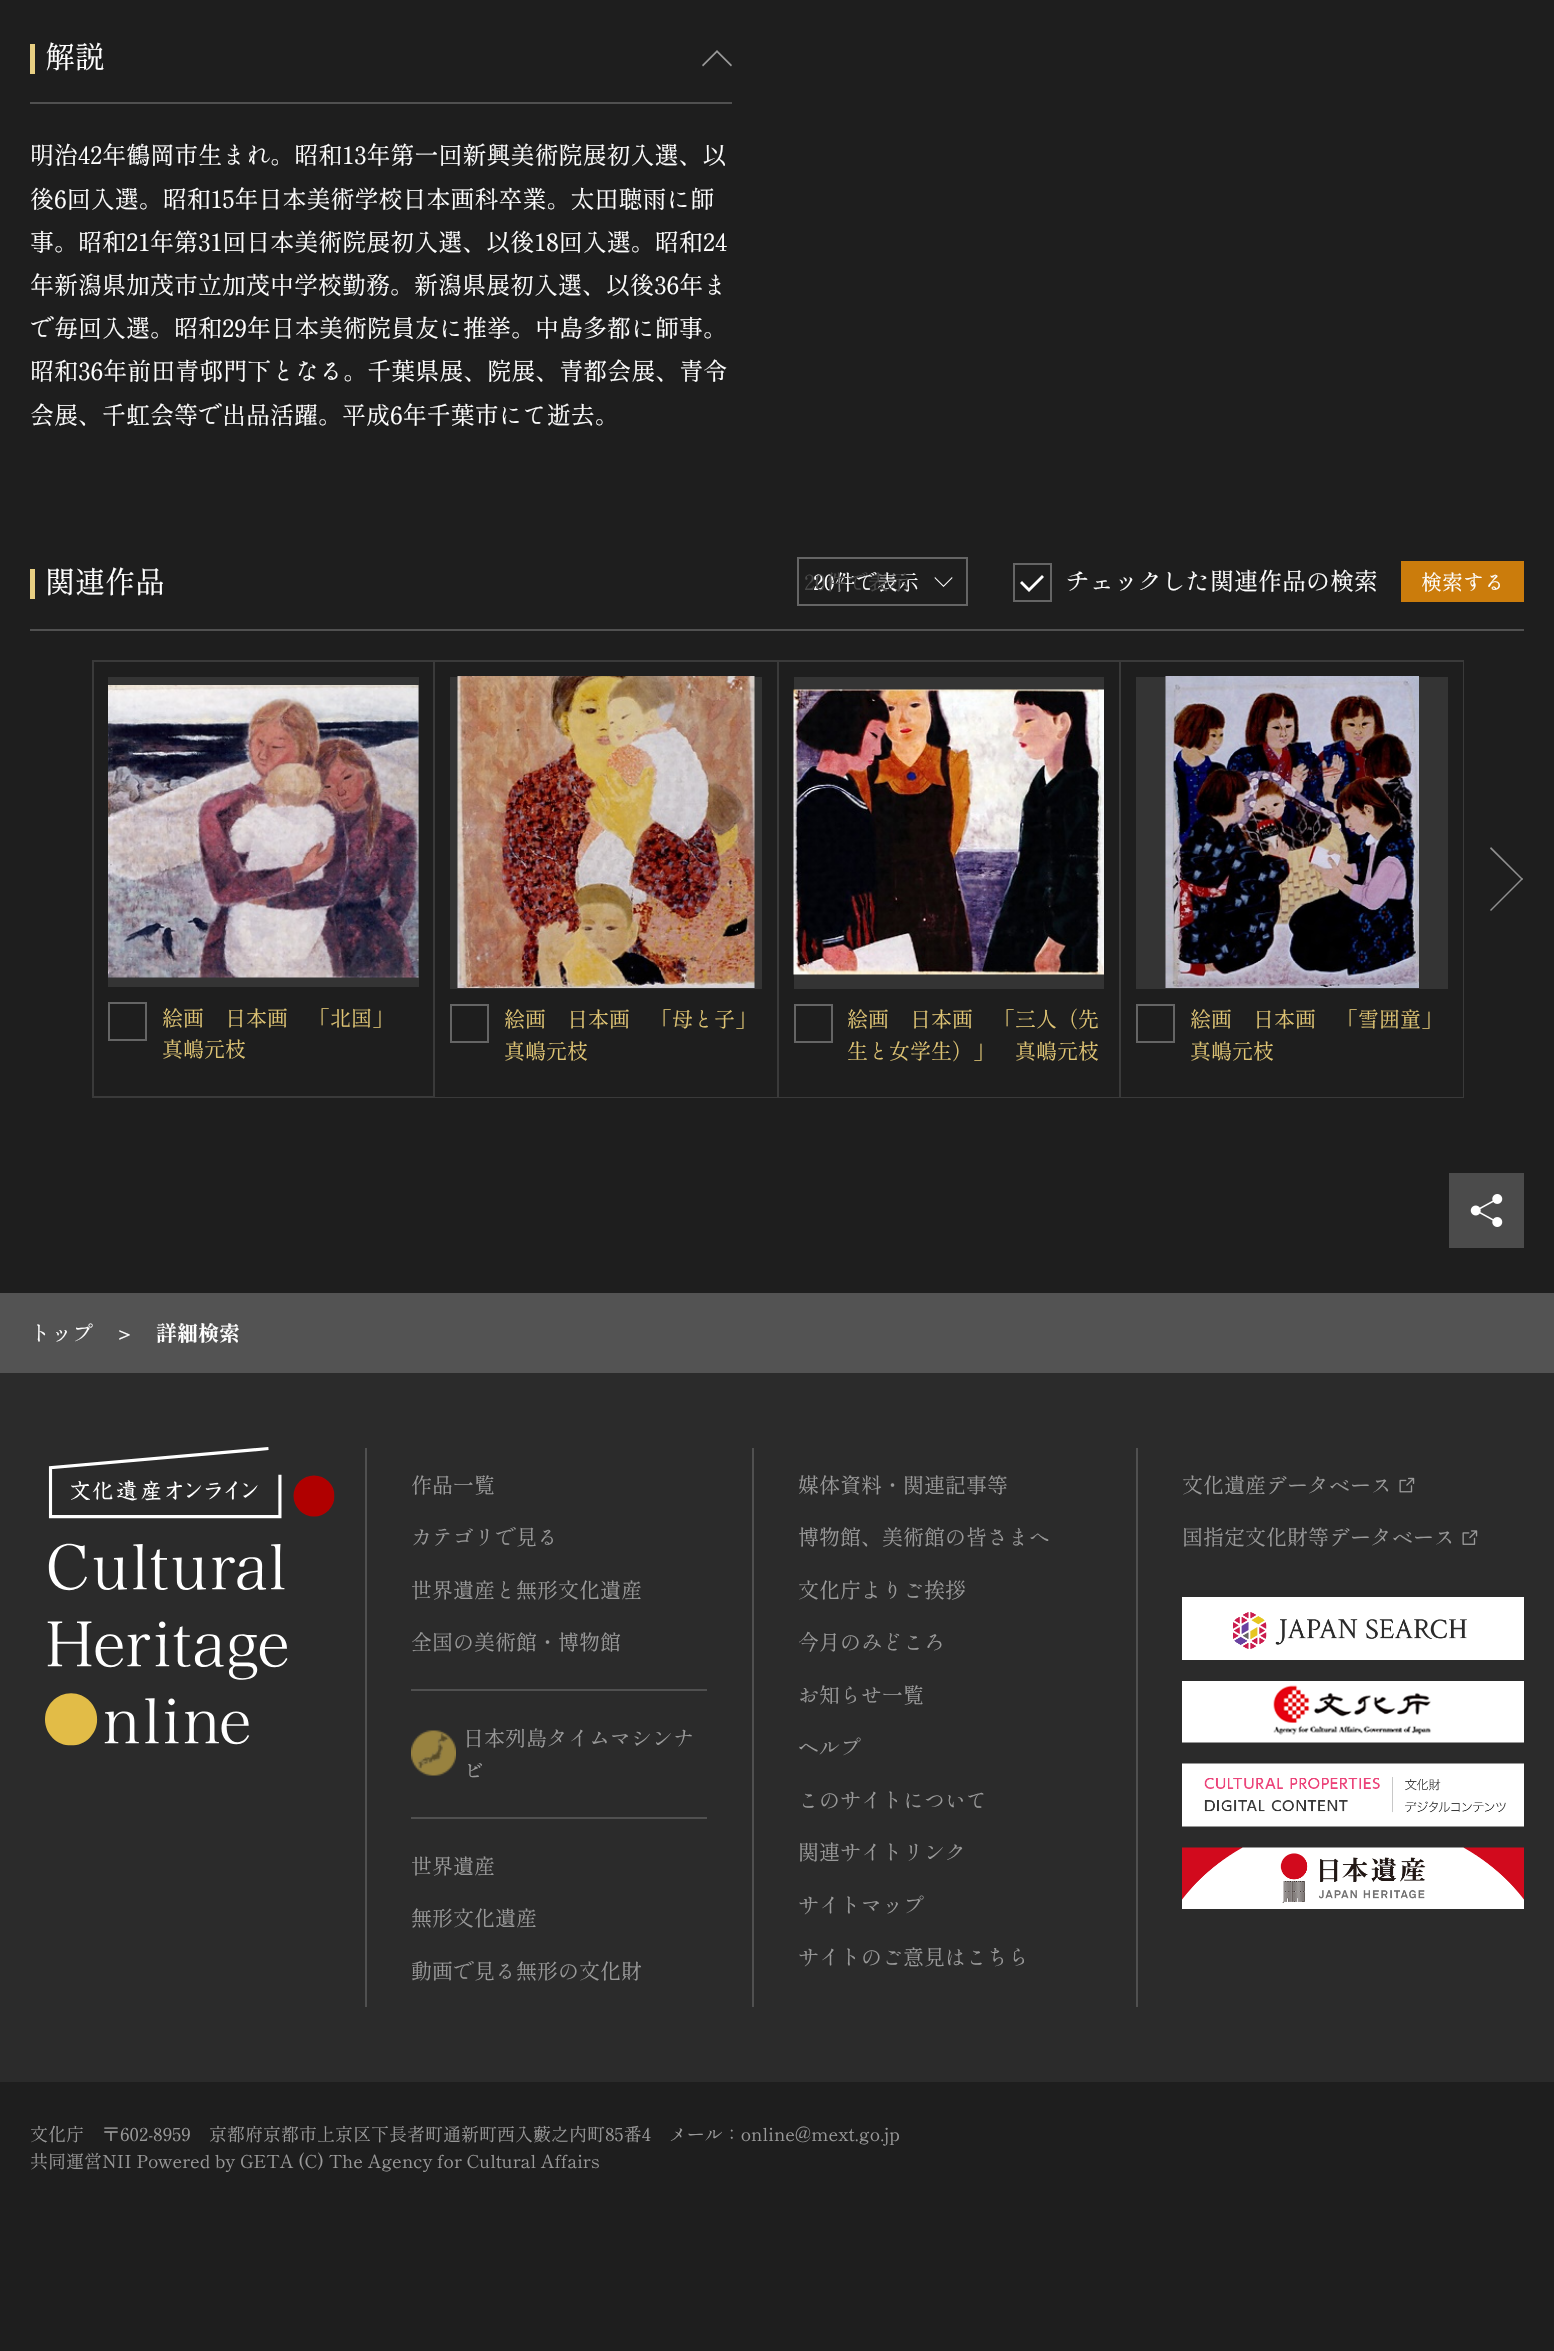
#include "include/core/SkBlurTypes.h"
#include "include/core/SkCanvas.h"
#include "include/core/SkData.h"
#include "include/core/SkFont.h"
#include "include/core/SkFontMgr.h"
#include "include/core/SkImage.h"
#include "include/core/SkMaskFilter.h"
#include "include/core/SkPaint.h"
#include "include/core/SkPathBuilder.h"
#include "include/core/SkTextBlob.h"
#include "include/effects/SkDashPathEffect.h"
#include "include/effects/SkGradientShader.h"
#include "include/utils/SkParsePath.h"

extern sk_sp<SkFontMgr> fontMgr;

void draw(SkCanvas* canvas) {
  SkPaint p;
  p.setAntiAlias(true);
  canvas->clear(SkColorSetRGB(30, 30, 30));
  p.setColor(SkColorSetRGB(80, 80, 80));
  canvas->drawRect(SkRect::MakeLTRB(30, 102, 732, 104), p);
  p.setColor(SkColorSetRGB(232, 207, 130));
  canvas->drawRect(SkRect::MakeLTRB(30, 44, 35, 74), p);
  p.setColor(SkColorSetRGB(153, 153, 153));
  canvas->drawPath(SkPathBuilder().moveTo(717, 50).lineTo(732, 65).lineTo(731, 66.5f).lineTo(717, 52.5f).lineTo(703, 66.5f).lineTo(702, 65).close().detach(), p);
  p.setColor(SkColorSetRGB(80, 80, 80));
  canvas->drawRect(SkRect::MakeLTRB(30, 629, 1524, 631), p);
  p.setColor(SkColorSetRGB(232, 207, 130));
  canvas->drawRect(SkRect::MakeLTRB(30, 569, 35, 599), p);
  p.setStyle(SkPaint::kStroke_Style);
  p.setStrokeWidth(2);
  p.setColor(SkColorSetRGB(101, 101, 101));
  canvas->drawRect(SkRect::MakeLTRB(798, 558, 967, 605), p);
  p.setStyle(SkPaint::kFill_Style);
  p.setColor(SK_ColorWHITE);
  canvas->drawPath(SkPathBuilder().moveTo(943.5f, 587).lineTo(934.5f, 578).lineTo(935, 577).lineTo(943.5f, 585.5f).lineTo(952, 577).lineTo(952.5f, 578).close().detach(), p);
  p.setStyle(SkPaint::kStroke_Style);
  p.setColor(SkColorSetRGB(101, 101, 101));
  canvas->drawRect(SkRect::MakeLTRB(1014, 564, 1051, 601), p);
  p.setStyle(SkPaint::kFill_Style);
  p.setColor(SK_ColorWHITE);
  canvas->drawPath(SkPathBuilder().moveTo(1029, 592).lineTo(1020, 583).lineTo(1022, 581).lineTo(1029, 588).lineTo(1042, 575).lineTo(1044, 577).close().detach(), p);
  p.setColor(SkColorSetRGB(203, 124, 12));
  canvas->drawRect(SkRect::MakeLTRB(1401, 561, 1524, 602), p);
  p.setColor(SkColorSetRGB(143, 143, 143));
  canvas->drawPath(SkPathBuilder().moveTo(1490, 848.5f).lineTo(1491, 847).lineTo(1523, 879).lineTo(1522, 880).close().detach(), p);
  canvas->drawPath(SkPathBuilder().moveTo(1490, 910).lineTo(1522, 878).lineTo(1523, 879).lineTo(1491, 911).close().detach(), p);
  p.setStyle(SkPaint::kStroke_Style);
  p.setColor(SkColorSetRGB(58, 58, 58));
  canvas->drawRect(SkRect::MakeLTRB(93, 661, 434, 1097), p);
  p.setStyle(SkPaint::kFill_Style);
  p.setColor(SkColorSetRGB(52, 52, 52));
  canvas->drawRect(SkRect::MakeLTRB(108, 677, 419, 987), p);
  canvas->drawImageRect(SkImages::DeferredFromEncodedData(SkData::MakeFromFileName("images/1.png")), SkRect::MakeLTRB(108, 685, 419, 978), SkSamplingOptions());
  p.setStyle(SkPaint::kStroke_Style);
  p.setColor(SkColorSetRGB(101, 101, 101));
  canvas->drawRect(SkRect::MakeLTRB(109, 1003, 146, 1040), p);
  p.setStyle(SkPaint::kFill_Style);
  p.setColor(SkColorSetRGB(58, 58, 58));
  canvas->drawRect(SkRect::MakeLTRB(435, 660, 1464, 662), p);
  canvas->drawRect(SkRect::MakeLTRB(777, 660, 779, 1098), p);
  canvas->drawRect(SkRect::MakeLTRB(435, 1097, 779, 1098), p);
  p.setColor(SkColorSetRGB(52, 52, 52));
  canvas->drawRect(SkRect::MakeLTRB(450, 677, 762, 989), p);
  canvas->drawImageRect(SkImages::DeferredFromEncodedData(SkData::MakeFromFileName("images/2.png")), SkRect::MakeLTRB(457, 676, 755, 988), SkSamplingOptions());
  p.setStyle(SkPaint::kStroke_Style);
  p.setColor(SkColorSetRGB(101, 101, 101));
  canvas->drawRect(SkRect::MakeLTRB(451, 1005, 488, 1042), p);
  p.setStyle(SkPaint::kFill_Style);
  p.setColor(SkColorSetRGB(58, 58, 58));
  canvas->drawRect(SkRect::MakeLTRB(1119, 660, 1121, 1098), p);
  canvas->drawRect(SkRect::MakeLTRB(779, 1097, 1121, 1098), p);
  p.setColor(SkColorSetRGB(52, 52, 52));
  canvas->drawRect(SkRect::MakeLTRB(794, 677, 1104, 989), p);
  canvas->drawImageRect(SkImages::DeferredFromEncodedData(SkData::MakeFromFileName("images/3.png")), SkRect::MakeLTRB(793, 689, 1104, 975), SkSamplingOptions());
  p.setStyle(SkPaint::kStroke_Style);
  p.setColor(SkColorSetRGB(101, 101, 101));
  canvas->drawRect(SkRect::MakeLTRB(795, 1005, 832, 1042), p);
  p.setStyle(SkPaint::kFill_Style);
  p.setColor(SkColorSetRGB(58, 58, 58));
  canvas->drawRect(SkRect::MakeLTRB(1463, 660, 1464, 1098), p);
  canvas->drawRect(SkRect::MakeLTRB(1121, 1097, 1464, 1098), p);
  p.setColor(SkColorSetRGB(52, 52, 52));
  canvas->drawRect(SkRect::MakeLTRB(1136, 677, 1448, 989), p);
  canvas->drawImageRect(SkImages::DeferredFromEncodedData(SkData::MakeFromFileName("images/4.png")), SkRect::MakeLTRB(1165, 676, 1419, 988), SkSamplingOptions());
  p.setStyle(SkPaint::kStroke_Style);
  p.setColor(SkColorSetRGB(101, 101, 101));
  canvas->drawRect(SkRect::MakeLTRB(1137, 1005, 1174, 1042), p);
  p.setStyle(SkPaint::kFill_Style);
  p.setColor(SkColorSetRGB(75, 75, 75));
  canvas->drawRect(SkRect::MakeLTRB(1449, 1173, 1524, 1248), p);
  canvas->drawImageRect(SkImages::DeferredFromEncodedData(SkData::MakeFromFileName("images/5.png")), SkRect::MakeLTRB(1470, 1194, 1503, 1227), SkSamplingOptions());
  p.setColor(SkColorSetRGB(83, 83, 83));
  canvas->drawRect(SkRect::MakeLTRB(0, 1293, 1554, 1373), p);
  p.setColor(SkColorSetRGB(43, 43, 43));
  canvas->drawRect(SkRect::MakeLTRB(0, 1373, 1554, 2082), p);
  canvas->drawImageRect(SkImages::DeferredFromEncodedData(SkData::MakeFromFileName("images/6.png")), SkRect::MakeLTRB(45, 1447, 335, 1746), SkSamplingOptions());
  p.setColor(SkColorSetRGB(80, 80, 80));
  canvas->drawRect(SkRect::MakeLTRB(365, 1448, 367, 2007), p);
  canvas->drawRect(SkRect::MakeLTRB(752, 1448, 754, 2007), p);
  canvas->drawRect(SkRect::MakeLTRB(1136, 1448, 1138, 2007), p);
  canvas->drawImageRect(SkImages::DeferredFromEncodedData(SkData::MakeFromFileName("images/7.png")), SkRect::MakeLTRB(1399, 1477, 1415, 1493), SkSamplingOptions());
  canvas->drawImageRect(SkImages::DeferredFromEncodedData(SkData::MakeFromFileName("images/8.png")), SkRect::MakeLTRB(1462, 1530, 1478, 1545), SkSamplingOptions());
  canvas->drawImageRect(SkImages::DeferredFromEncodedData(SkData::MakeFromFileName("images/9.png")), SkRect::MakeLTRB(1182, 1597, 1524, 1660), SkSamplingOptions());
  canvas->drawImageRect(SkImages::DeferredFromEncodedData(SkData::MakeFromFileName("images/10.png")), SkRect::MakeLTRB(1182, 1681, 1524, 1743), SkSamplingOptions());
  canvas->drawImageRect(SkImages::DeferredFromEncodedData(SkData::MakeFromFileName("images/11.png")), SkRect::MakeLTRB(1182, 1763, 1524, 1827), SkSamplingOptions());
  canvas->drawImageRect(SkImages::DeferredFromEncodedData(SkData::MakeFromFileName("images/12.png")), SkRect::MakeLTRB(1182, 1847, 1524, 1909), SkSamplingOptions());
  canvas->drawRect(SkRect::MakeLTRB(411, 1689, 707, 1691), p);
  canvas->drawImageRect(SkImages::DeferredFromEncodedData(SkData::MakeFromFileName("images/13.png")), SkRect::MakeLTRB(411, 1730, 456, 1776), SkSamplingOptions());
  canvas->drawRect(SkRect::MakeLTRB(411, 1817, 707, 1819), p);
  SkFont font1(fontMgr->matchFamilyStyle("Shippori Mincho", SkFontStyle::Normal()), 30);
  font1.setSubpixel(true);
  p.setColor(SK_ColorWHITE);
  canvas->drawString("解説", 45, 68, font1, p);
  SkFont font2(fontMgr->matchFamilyStyle("Shippori Mincho", SkFontStyle::Normal()), 24);
  font2.setSubpixel(true);
  canvas->drawString("明治42年鶴岡市生まれ。昭和13年第一回新興美術院展初入選、以", 30, 164, font2, p);
  canvas->drawString("後6回入選。昭和15年日本美術学校日本画科卒業。太田聴雨に師", 30, 208, font2, p);
  canvas->drawString("事。昭和21年第31回日本美術院展初入選、以後18回入選。昭和24", 30, 251, font2, p);
  canvas->drawString("年新潟県加茂市立加茂中学校勤務。新潟県展初入選、以後36年ま", 30, 294, font2, p);
  canvas->drawString("で毎回入選。昭和29年日本美術院員友に推挙。中島多都に師事。", 30, 337, font2, p);
  canvas->drawString("昭和36年前田青邨門下となる。千葉県展、院展、青都会展、青令", 30, 380, font2, p);
  canvas->drawString("会展、千虹会等で出品活躍。平成6年千葉市にて逝去。", 30, 424, font2, p);
  canvas->drawString("関連作品", 45, 593, font1, p);
  SkFont font3(fontMgr->matchFamilyStyle("Shippori Mincho", SkFontStyle::Normal()), 21);
  font3.setSubpixel(true);
  canvas->drawString("20件で表示", 813, 590, font3, p);
  p.setColor(SkColorSetRGB(73, 73, 73));
  canvas->drawString("20件で表示", 804, 590, font3, p);
  p.setColor(SK_ColorWHITE);
  canvas->drawString("チェックした関連作品の検索", 1066, 590, font2, p);
  canvas->drawString("検索する", 1421, 590, font3, p);
  p.setColor(SkColorSetRGB(223, 196, 116));
  canvas->drawString("絵画　日本画　「北国」", 162, 1026, font3, p);
  canvas->drawString("真嶋元枝", 162, 1057, font3, p);
  canvas->drawString("絵画　日本画　「母と子」", 504, 1027, font3, p);
  canvas->drawString("真嶋元枝", 504, 1059, font3, p);
  canvas->drawString("絵画　日本画　「三人（先", 847, 1027, font3, p);
  canvas->drawString("生と女学生）」　真嶋元枝", 847, 1059, font3, p);
  canvas->drawString("絵画　日本画　「雪囲童」", 1190, 1027, font3, p);
  canvas->drawString("真嶋元枝", 1190, 1059, font3, p);
  p.setColor(SK_ColorWHITE);
  canvas->drawString("トップ", 30, 1341, font3, p);
  SkFont font4(fontMgr->matchFamilyStyle("WenQuanYi Zen Hei", SkFontStyle(500, SkFontStyle::kNormal_Width, SkFontStyle::kUpright_Slant)), 21);
  font4.setSubpixel(true);
  canvas->drawString("＞", 114, 1341, font4, p);
  SkFont font5(fontMgr->matchFamilyStyle("Shippori Mincho", SkFontStyle::Bold()), 21);
  font5.setSubpixel(true);
  canvas->drawString("詳細検索", 156, 1341, font5, p);
  p.setColor(SkColorSetRGB(153, 153, 153));
  canvas->drawString("作品一覧", 411, 1493, font3, p);
  canvas->drawString("カテゴリで見る", 411, 1545, font3, p);
  canvas->drawString("世界遺産と無形文化遺産", 411, 1598, font3, p);
  canvas->drawString("全国の美術館・博物館", 411, 1650, font3, p);
  canvas->drawString("媒体資料・関連記事等", 798, 1493, font3, p);
  canvas->drawString("博物館、美術館の皆さまへ", 798, 1545, font3, p);
  canvas->drawString("文化庁よりご挨拶", 798, 1598, font3, p);
  canvas->drawString("今月のみどころ", 798, 1650, font3, p);
  canvas->drawString("お知らせ一覧", 798, 1703, font3, p);
  canvas->drawString("ヘルプ", 798, 1755, font3, p);
  canvas->drawString("このサイトについて", 798, 1808, font3, p);
  canvas->drawString("関連サイトリンク", 798, 1860, font3, p);
  canvas->drawString("サイトマップ", 798, 1913, font3, p);
  canvas->drawString("サイトのご意見はこちら", 798, 1965, font3, p);
  canvas->drawString("文化遺産データベース", 1182, 1493, font3, p);
  canvas->drawString("国指定文化財等データベース", 1182, 1545, font3, p);
  canvas->drawString("日本列島タイムマシンナ", 463, 1746, font3, p);
  canvas->drawString("ビ", 463, 1778, font3, p);
  canvas->drawString("世界遺産", 411, 1874, font3, p);
  canvas->drawString("無形文化遺産", 411, 1926, font3, p);
  canvas->drawString("動画で見る無形の文化財", 411, 1979, font3, p);
  SkFont font6(fontMgr->matchFamilyStyle("Shippori Mincho", SkFontStyle::Normal()), 18);
  font6.setSubpixel(true);
  canvas->drawString("文化庁　〒602-8959　京都府京都市上京区下長者町通新町西入藪之内町85番4　メール：online@mext.go.jp", 30, 2141, font6, p);
  canvas->drawString("共同運営NII Powered by GETA (C) The Agency for Cultural Affairs", 30, 2168, font6, p);
}
